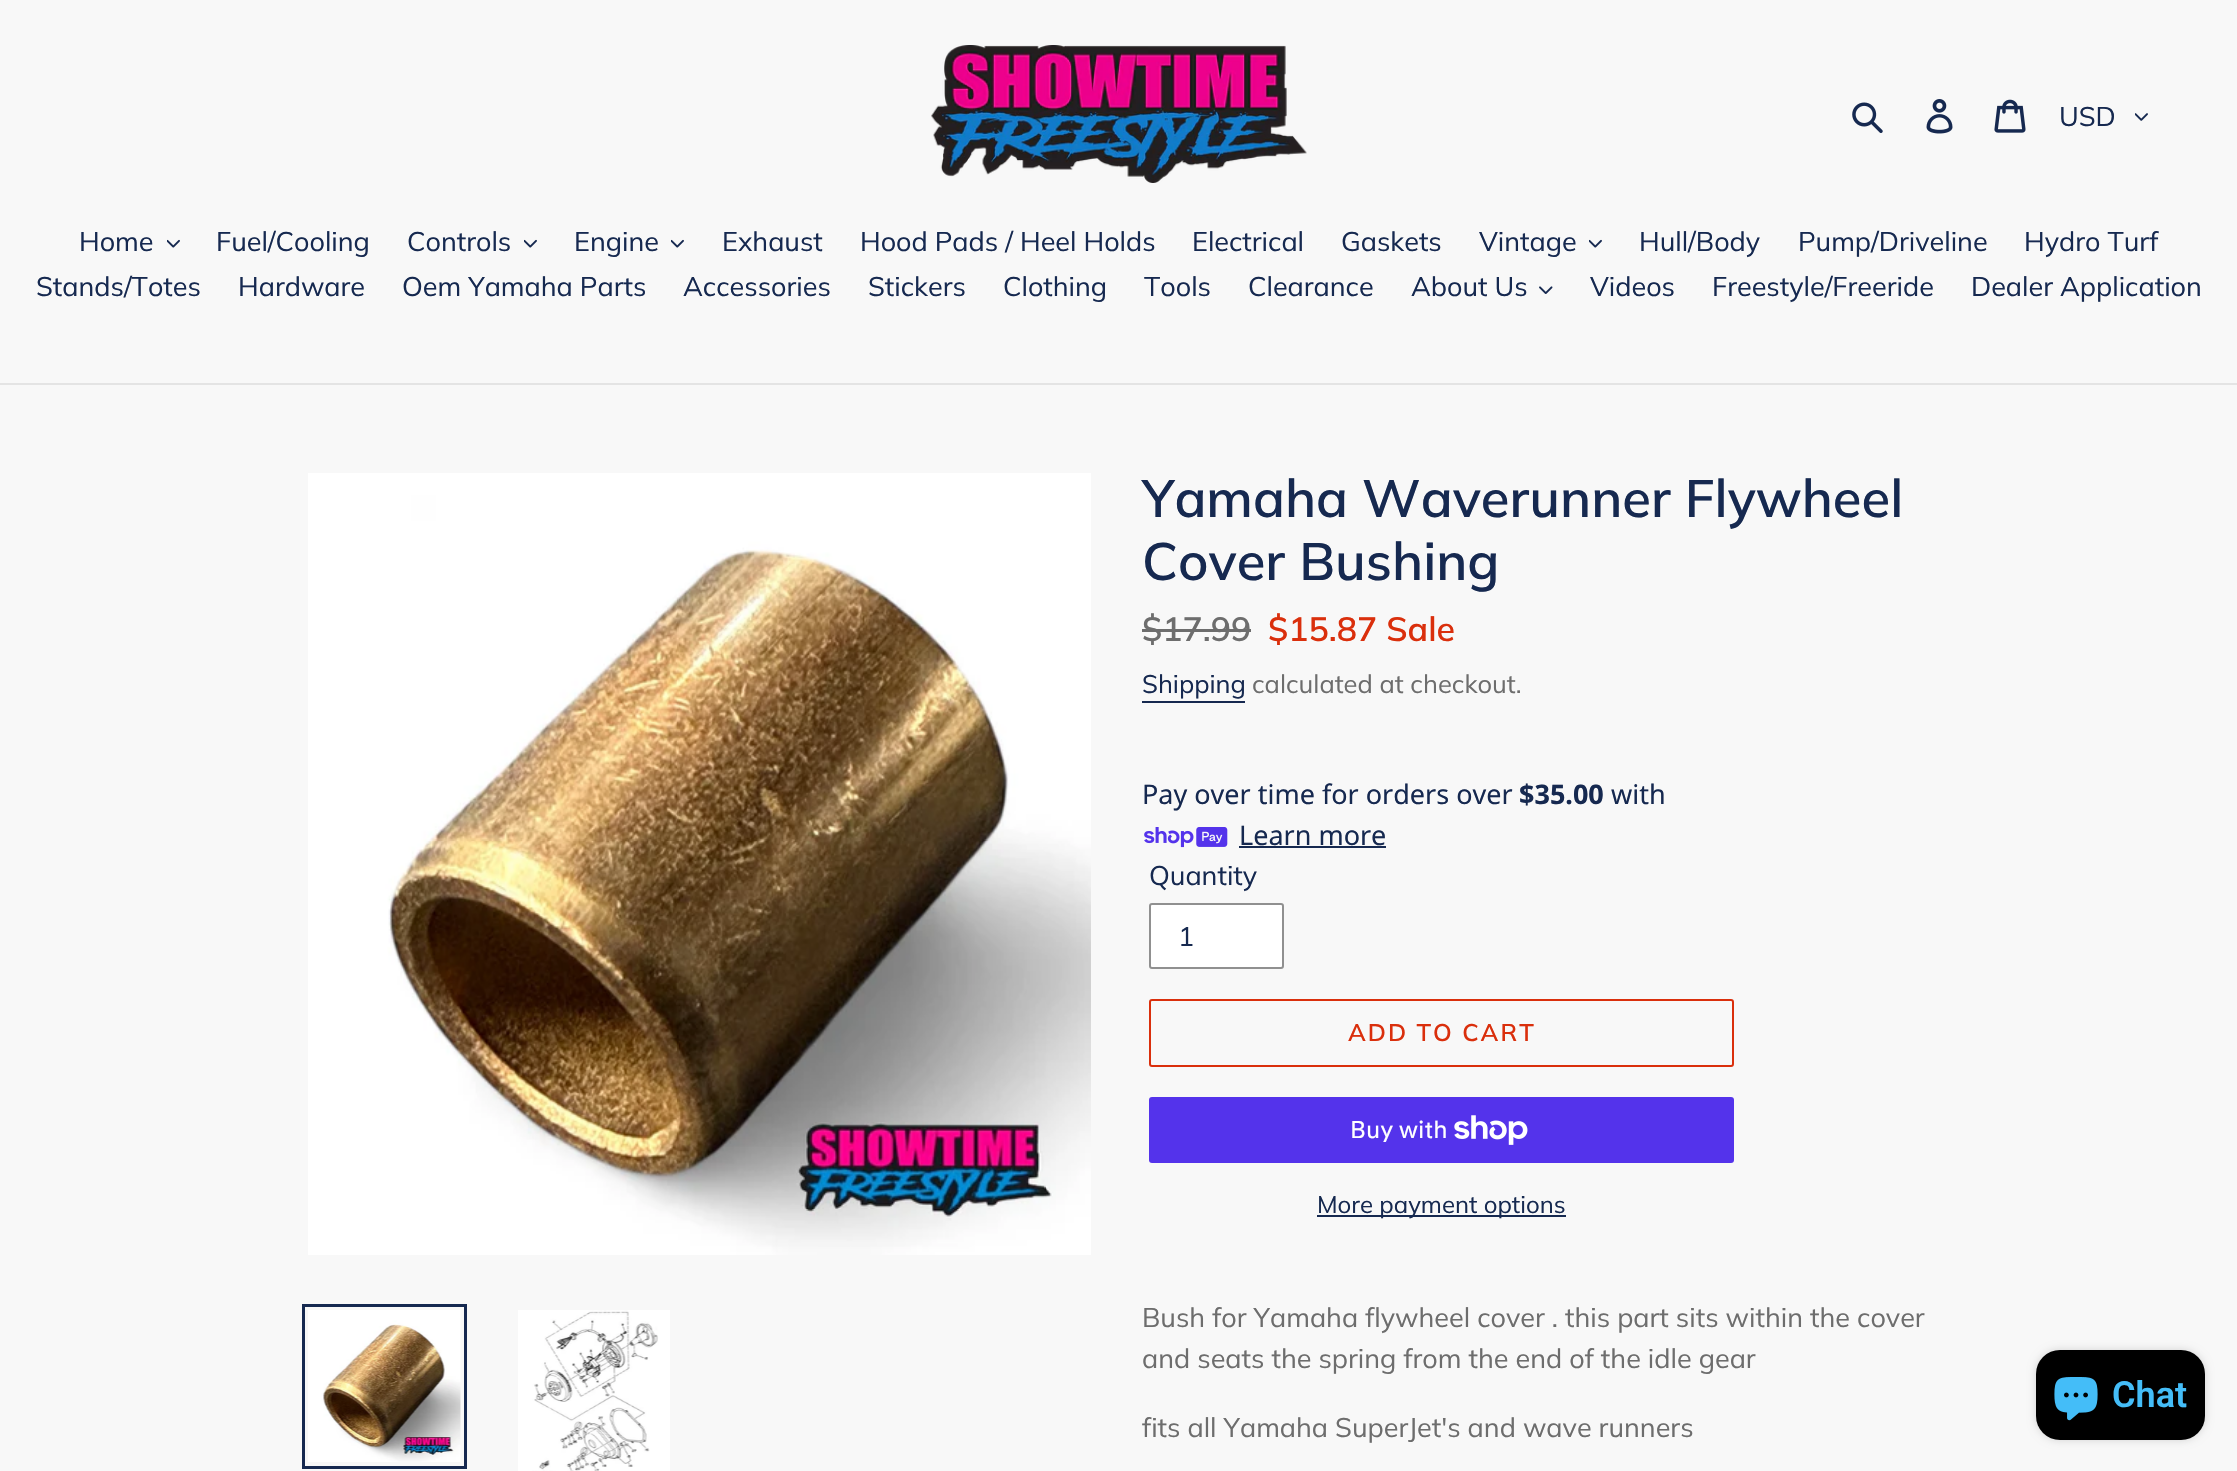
#include "include/core/SkBlurTypes.h"
#include "include/core/SkCanvas.h"
#include "include/core/SkData.h"
#include "include/core/SkFont.h"
#include "include/core/SkFontMgr.h"
#include "include/core/SkImage.h"
#include "include/core/SkMaskFilter.h"
#include "include/core/SkPaint.h"
#include "include/core/SkPathBuilder.h"
#include "include/core/SkTextBlob.h"
#include "include/effects/SkDashPathEffect.h"
#include "include/effects/SkGradientShader.h"
#include "include/utils/SkParsePath.h"

extern sk_sp<SkFontMgr> fontMgr;

void draw(SkCanvas* canvas) {
  SkPaint p;
  p.setAntiAlias(true);
  auto spacedText = [&](const char* s, float x, float y, const SkFont& font, const SkPaint& ink, float letter, float word) {
    std::vector<SkGlyphID> glyphs(font.countText(s, strlen(s), SkTextEncoding::kUTF8));
    std::vector<float> xs(glyphs.size());
    font.textToGlyphs(s, strlen(s), SkTextEncoding::kUTF8, glyphs);
    font.getXPos(glyphs, xs, x);
    float extra = 0;
    for (size_t i = 0; i < glyphs.size(); i++) {
      xs[i] += extra;
      extra += letter + word * (glyphs[i] == font.unicharToGlyph(' '));
    }
    canvas->drawTextBlob(SkTextBlob::MakeFromPosHGlyphs(glyphs, xs, y, font), 0, 0, ink);
  };
  canvas->clear(SkColorSetRGB(248, 248, 248));
  canvas->drawImageRect(SkImages::DeferredFromEncodedData(SkData::MakeFromFileName("images/1.png")), SkRect::MakeLTRB(931, 45, 1307, 183), SkSamplingOptions());
  canvas->drawImageRect(SkImages::DeferredFromEncodedData(SkData::MakeFromFileName("images/2.png")), SkRect::MakeLTRB(1852, 102, 1883, 133), SkSamplingOptions());
  canvas->drawImageRect(SkImages::DeferredFromEncodedData(SkData::MakeFromFileName("images/3.png")), SkRect::MakeLTRB(1926, 99, 1953, 134), SkSamplingOptions());
  canvas->drawImageRect(SkImages::DeferredFromEncodedData(SkData::MakeFromFileName("images/4.png")), SkRect::MakeLTRB(1994, 99, 2026, 133), SkSamplingOptions());
  canvas->drawImageRect(SkImages::DeferredFromEncodedData(SkData::MakeFromFileName("images/5.png")), SkRect::MakeLTRB(2135, 113, 2148, 121), SkSamplingOptions());
  p.setColor(SkColorSetRGB(228, 228, 228));
  canvas->drawRect(SkRect::MakeLTRB(0, 383, 2237, 385), p);
  canvas->drawImageRect(SkImages::DeferredFromEncodedData(SkData::MakeFromFileName("images/6.png")), SkRect::MakeLTRB(167, 239, 180, 248), SkSamplingOptions());
  canvas->drawImageRect(SkImages::DeferredFromEncodedData(SkData::MakeFromFileName("images/6.png")), SkRect::MakeLTRB(524, 239, 537, 248), SkSamplingOptions());
  canvas->drawImageRect(SkImages::DeferredFromEncodedData(SkData::MakeFromFileName("images/6.png")), SkRect::MakeLTRB(671, 239, 684, 248), SkSamplingOptions());
  canvas->drawImageRect(SkImages::DeferredFromEncodedData(SkData::MakeFromFileName("images/6.png")), SkRect::MakeLTRB(1589, 239, 1602, 248), SkSamplingOptions());
  canvas->drawImageRect(SkImages::DeferredFromEncodedData(SkData::MakeFromFileName("images/7.png")), SkRect::MakeLTRB(1539, 286, 1553, 294), SkSamplingOptions());
  canvas->drawImageRect(SkImages::DeferredFromEncodedData(SkData::MakeFromFileName("images/8.png")), SkRect::MakeLTRB(308, 473, 1091, 1255), SkSamplingOptions());
  p.setStyle(SkPaint::kStroke_Style);
  p.setStrokeWidth(3);
  p.setColor(SkColorSetRGB(22, 41, 80));
  canvas->drawRect(SkRect::MakeLTRB(303.5f, 1305.5f, 465.5f, 1467.5f), p);
  canvas->drawImageRect(SkImages::DeferredFromEncodedData(SkData::MakeFromFileName("images/9.png")), SkRect::MakeLTRB(308, 1310, 461, 1462), SkSamplingOptions());
  canvas->drawImageRect(SkImages::DeferredFromEncodedData(SkData::MakeFromFileName("images/10.png")), SkRect::MakeLTRB(518, 1310, 670, 1471), SkSamplingOptions());
  p.setStyle(SkPaint::kFill_Style);
  p.setColor(SkColorSetRGB(109, 109, 109));
  canvas->drawRect(SkRect::MakeLTRB(1142, 629, 1251, 632), p);
  p.setColor(SkColorSetRGB(22, 41, 80));
  canvas->drawRect(SkRect::MakeLTRB(1142, 701, 1245, 703), p);
  canvas->drawImageRect(SkImages::DeferredFromEncodedData(SkData::MakeFromFileName("images/11.png")), SkRect::MakeLTRB(1144, 827, 1228, 848), SkSamplingOptions());
  canvas->drawRect(SkRect::MakeLTRB(1239, 846, 1386, 848), p);
  p.setColor(SK_ColorWHITE);
  canvas->drawRoundRect(SkRect::MakeLTRB(1150, 904, 1283, 968), 2, 2, p);
  p.setStyle(SkPaint::kStroke_Style);
  p.setStrokeWidth(2);
  p.setColor(SkColorSetRGB(144, 144, 144));
  canvas->drawRoundRect(SkRect::MakeLTRB(1150, 904, 1283, 968), 2, 2, p);
  p.setColor(SkColorSetRGB(218, 47, 12));
  canvas->drawRoundRect(SkRect::MakeLTRB(1150, 1000, 1733, 1066), 2, 2, p);
  p.setStyle(SkPaint::kFill_Style);
  p.setColor(SkColorSetRGB(84, 51, 235));
  canvas->drawRoundRect(SkRect::MakeLTRB(1149, 1097, 1734, 1163), 3, 3, p);
  canvas->drawImageRect(SkImages::DeferredFromEncodedData(SkData::MakeFromFileName("images/12.png")), SkRect::MakeLTRB(1454, 1115, 1528, 1145), SkSamplingOptions());
  p.setColor(SkColorSetRGB(22, 41, 80));
  canvas->drawRect(SkRect::MakeLTRB(1317, 1215, 1566, 1217), p);
  p.setColor(SkColorSetARGB(38, 0, 0, 0));
  p.setMaskFilter(SkMaskFilter::MakeBlur(kNormal_SkBlurStyle, 4));
  canvas->drawRoundRect(SkRect::MakeLTRB(2036, 1350, 2205, 1440), 24, 24, p);
  p.setMaskFilter(nullptr);
  p.setColor(SK_ColorBLACK);
  canvas->drawRoundRect(SkRect::MakeLTRB(2036, 1350, 2205, 1440), 24, 24, p);
  canvas->drawImageRect(SkImages::DeferredFromEncodedData(SkData::MakeFromFileName("images/13.png")), SkRect::MakeLTRB(2054, 1377, 2098, 1421), SkSamplingOptions());
  SkFont font1(fontMgr->matchFamilyStyle("Muli", SkFontStyle::Normal()), 27);
  font1.setSubpixel(true);
  p.setColor(SkColorSetRGB(22, 41, 80));
  canvas->drawString("USD", 2059, 126, font1, p);
  canvas->drawString("Home", 79, 251, font1, p);
  canvas->drawString("Fuel/Cooling", 216, 251, font1, p);
  canvas->drawString("Controls", 407, 251, font1, p);
  canvas->drawString("Engine", 574, 251, font1, p);
  canvas->drawString("Exhaust", 722, 251, font1, p);
  canvas->drawString("Hood Pads / Heel Holds", 860, 251, font1, p);
  canvas->drawString("Electrical", 1192, 251, font1, p);
  canvas->drawString("Gaskets", 1341, 251, font1, p);
  canvas->drawString("Vintage", 1479, 251, font1, p);
  canvas->drawString("Hull/Body", 1639, 251, font1, p);
  canvas->drawString("Pump/Driveline", 1798, 251, font1, p);
  canvas->drawString("Hydro Turf", 2024, 251, font1, p);
  canvas->drawString("Stands/Totes", 36, 296, font1, p);
  canvas->drawString("Hardware", 238, 296, font1, p);
  canvas->drawString("Oem Yamaha Parts", 402, 296, font1, p);
  canvas->drawString("Accessories", 683, 296, font1, p);
  canvas->drawString("Stickers", 868, 296, font1, p);
  canvas->drawString("Clothing", 1003, 296, font1, p);
  canvas->drawString("Tools", 1144, 296, font1, p);
  canvas->drawString("Clearance", 1248, 296, font1, p);
  canvas->drawString("About Us", 1411, 296, font1, p);
  canvas->drawString("Videos", 1590, 296, font1, p);
  canvas->drawString("Freestyle/Freeride", 1712, 296, font1, p);
  canvas->drawString("Dealer Application", 1971, 296, font1, p);
  SkFont font2(fontMgr->matchFamilyStyle("Muli", SkFontStyle(600, SkFontStyle::kNormal_Width, SkFontStyle::kUpright_Slant)), 52.5f);
  font2.setSubpixel(true);
  canvas->drawString("Yamaha Waverunner Flywheel", 1142, 517, font2, p);
  canvas->drawString("Cover Bushing", 1142, 580, font2, p);
  SkFont font3(fontMgr->matchFamilyStyle("Muli", SkFontStyle(600, SkFontStyle::kNormal_Width, SkFontStyle::kUpright_Slant)), 33.75f);
  font3.setSubpixel(true);
  p.setColor(SkColorSetRGB(109, 109, 109));
  canvas->drawString("$17.99", 1142, 641, font3, p);
  p.setColor(SkColorSetRGB(218, 47, 12));
  canvas->drawString("$15.87 Sale", 1268, 641, font3, p);
  SkFont font4(fontMgr->matchFamilyStyle("Muli", SkFontStyle::Normal()), 25.5f);
  font4.setSubpixel(true);
  p.setColor(SkColorSetRGB(22, 41, 80));
  canvas->drawString("Shipping", 1142, 693, font4, p);
  p.setColor(SkColorSetRGB(109, 109, 109));
  canvas->drawString("calculated at checkout.", 1252, 693, font4, p);
  SkFont font5(fontMgr->matchFamilyStyle("Noto Sans", SkFontStyle::Normal()), 27);
  font5.setSubpixel(true);
  p.setColor(SkColorSetRGB(22, 41, 80));
  canvas->drawString("Pay over time for orders over", 1142, 804, font5, p);
  SkFont font6(fontMgr->matchFamilyStyle("Noto Sans", SkFontStyle::Bold()), 27);
  font6.setSubpixel(true);
  canvas->drawString("$35.00", 1519, 804, font6, p);
  canvas->drawString("with", 1611, 804, font5, p);
  canvas->drawString("Learn more", 1239, 845, font5, p);
  canvas->drawString("Quantity", 1149, 885, font1, p);
  canvas->drawString("1", 1178, 946, font1, p);
  SkFont font7(fontMgr->matchFamilyStyle("Muli", SkFontStyle(600, SkFontStyle::kNormal_Width, SkFontStyle::kUpright_Slant)), 24);
  font7.setSubpixel(true);
  p.setColor(SkColorSetRGB(218, 47, 12));
  spacedText("ADD TO CART", 1348, 1041, font7, p, 2, 0);
  SkFont font8(fontMgr->matchFamilyStyle("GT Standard", SkFontStyle::Normal()), 24);
  font8.setSubpixel(true);
  p.setColor(SK_ColorWHITE);
  canvas->drawString("Buy with", 1350, 1138, font8, p);
  SkFont font9(fontMgr->matchFamilyStyle("Muli", SkFontStyle::Normal()), 24);
  font9.setSubpixel(true);
  p.setColor(SkColorSetRGB(22, 41, 80));
  canvas->drawString("More payment options", 1317, 1213, font9, p);
  p.setColor(SkColorSetRGB(109, 109, 109));
  canvas->drawString("Bush for Yamaha flywheel cover . this part sits within the cover", 1142, 1327, font1, p);
  canvas->drawString("and seats the spring from the end of the idle gear", 1142, 1368, font1, p);
  canvas->drawString("fits all Yamaha SuperJet's and wave runners", 1142, 1437, font1, p);
  SkFont font10(fontMgr->matchFamilyStyle("Roboto", SkFontStyle(600, SkFontStyle::kNormal_Width, SkFontStyle::kUpright_Slant)), 36);
  font10.setSubpixel(true);
  p.setColor(SkColorSetRGB(68, 189, 248));
  canvas->drawString("Chat", 2112, 1407, font10, p);
}
